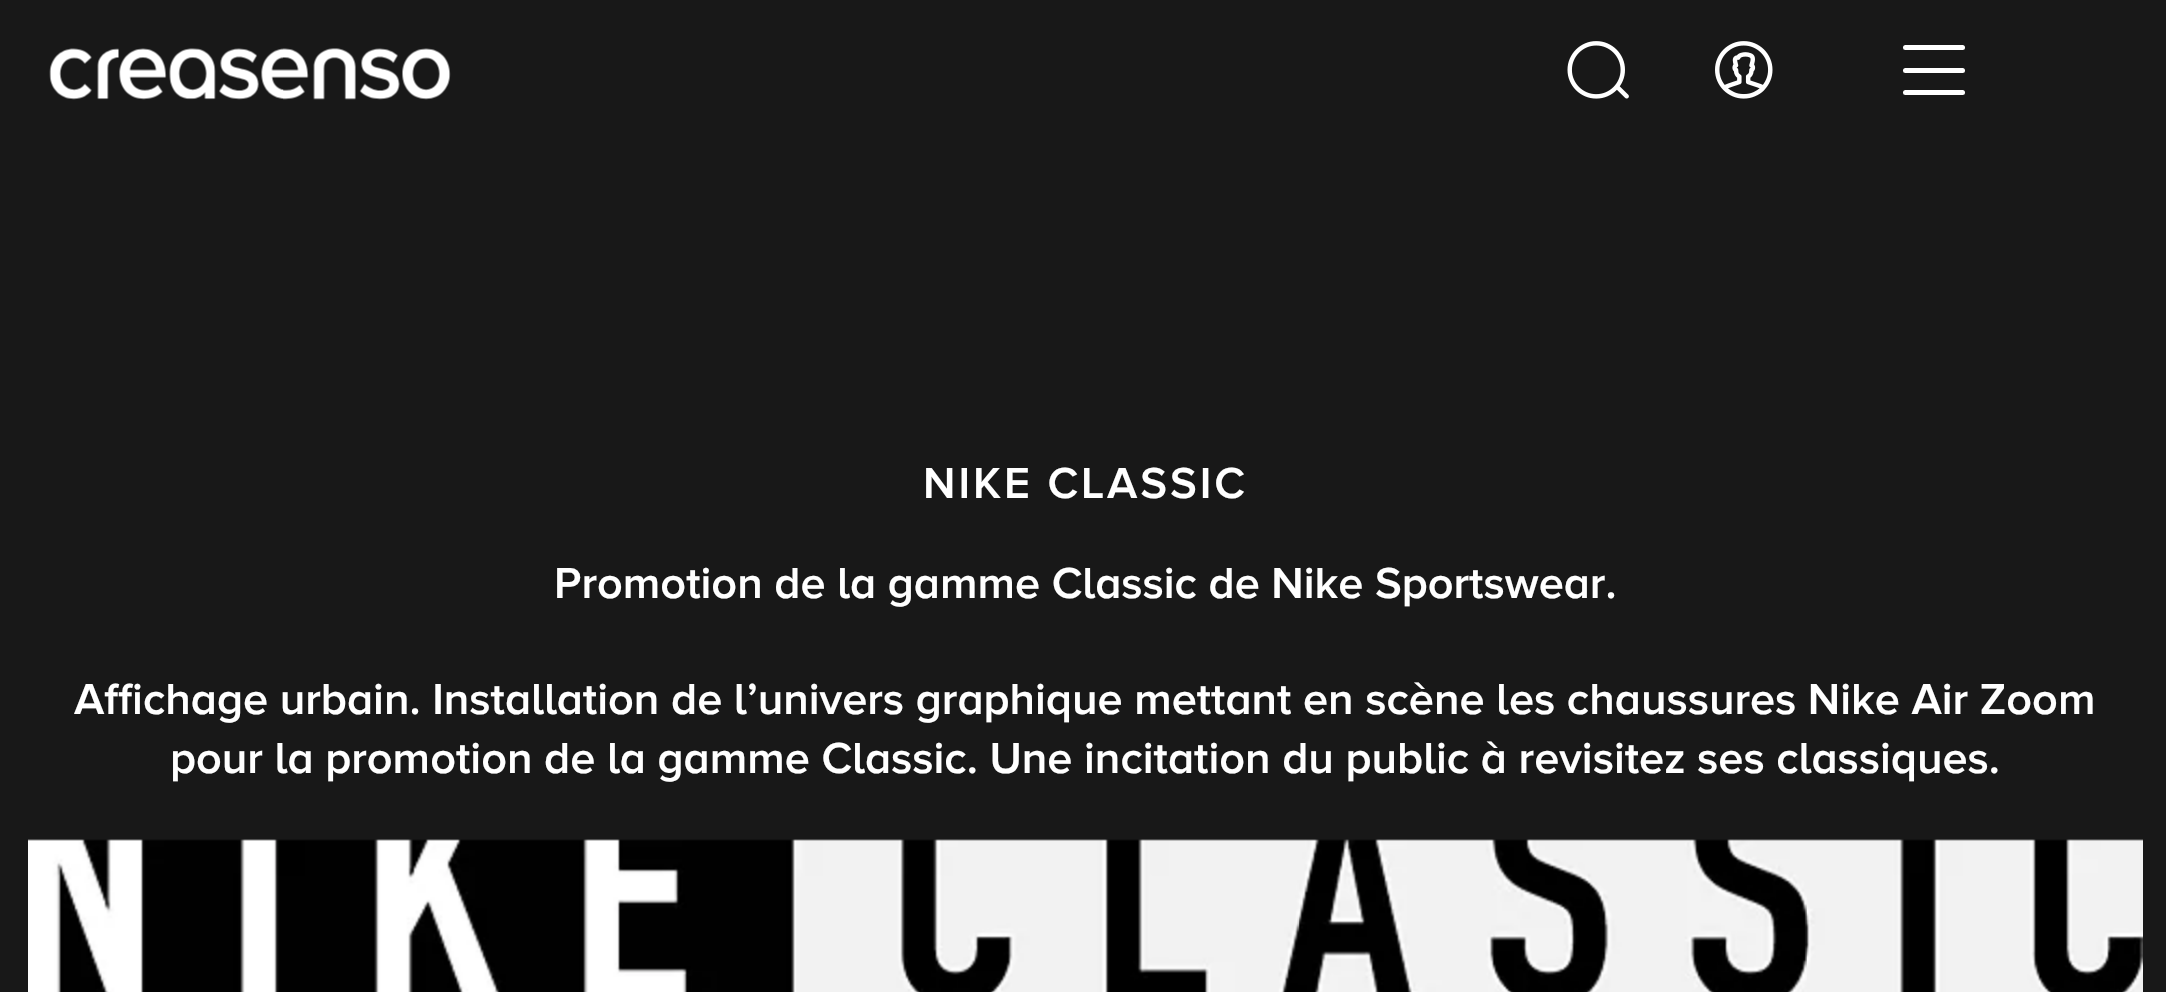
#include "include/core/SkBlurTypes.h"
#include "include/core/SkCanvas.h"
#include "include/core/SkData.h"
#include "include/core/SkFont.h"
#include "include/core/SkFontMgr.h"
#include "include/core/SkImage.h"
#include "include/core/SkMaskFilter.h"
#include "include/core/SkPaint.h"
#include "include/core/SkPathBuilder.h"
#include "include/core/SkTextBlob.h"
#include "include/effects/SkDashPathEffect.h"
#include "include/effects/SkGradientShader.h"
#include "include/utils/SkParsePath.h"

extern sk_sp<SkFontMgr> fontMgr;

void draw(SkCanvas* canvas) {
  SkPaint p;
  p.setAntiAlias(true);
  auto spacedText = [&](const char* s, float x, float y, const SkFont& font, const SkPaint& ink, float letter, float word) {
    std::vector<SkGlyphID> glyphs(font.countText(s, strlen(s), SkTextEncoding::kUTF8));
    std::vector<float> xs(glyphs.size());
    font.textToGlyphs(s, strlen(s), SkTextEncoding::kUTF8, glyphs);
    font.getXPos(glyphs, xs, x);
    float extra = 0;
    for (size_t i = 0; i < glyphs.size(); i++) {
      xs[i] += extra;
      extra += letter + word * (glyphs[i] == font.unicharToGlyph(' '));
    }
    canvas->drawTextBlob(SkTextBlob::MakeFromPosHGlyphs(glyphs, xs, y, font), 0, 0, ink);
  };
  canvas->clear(SkColorSetRGB(24, 24, 24));
  canvas->drawImageRect(SkImages::DeferredFromEncodedData(SkData::MakeFromFileName("images/1.png")), SkRect::MakeLTRB(49, 48, 451, 100), SkSamplingOptions());
  canvas->drawImageRect(SkImages::DeferredFromEncodedData(SkData::MakeFromFileName("images/2.png")), SkRect::MakeLTRB(1567, 41, 1629, 99), SkSamplingOptions());
  canvas->drawImageRect(SkImages::DeferredFromEncodedData(SkData::MakeFromFileName("images/3.png")), SkRect::MakeLTRB(1715, 41, 1773, 99), SkSamplingOptions());
  p.setColor(SK_ColorWHITE);
  canvas->drawRoundRect(SkRect::MakeLTRB(1903, 45, 1965, 50), 2.5f, 2.5f, p);
  canvas->drawRoundRect(SkRect::MakeLTRB(1903, 68, 1965, 73), 2.5f, 2.5f, p);
  canvas->drawRoundRect(SkRect::MakeLTRB(1903, 90, 1965, 95), 2.5f, 2.5f, p);
  canvas->drawImageRect(SkImages::DeferredFromEncodedData(SkData::MakeFromFileName("images/4.png")), SkRect::MakeLTRB(28, 839, 2143, 992), SkSamplingOptions());
  SkFont font1(fontMgr->matchFamilyStyle("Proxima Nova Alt", SkFontStyle(600, SkFontStyle::kNormal_Width, SkFontStyle::kUpright_Slant)), 45);
  font1.setSubpixel(true);
  spacedText("NIKE CLASSIC", 923, 498, font1, p, 3, 0);
  canvas->drawString("Promotion de la gamme Classic de Nike Sportswear.", 554, 598, font1, p);
  canvas->drawString("Affichage urbain. Installation de l’univers graphique mettant en scène les chaussures Nike Air Zoom", 74, 714, font1, p);
  canvas->drawString("pour la promotion de la gamme Classic. Une incitation du public à revisitez ses classiques.", 170, 773, font1, p);
}
